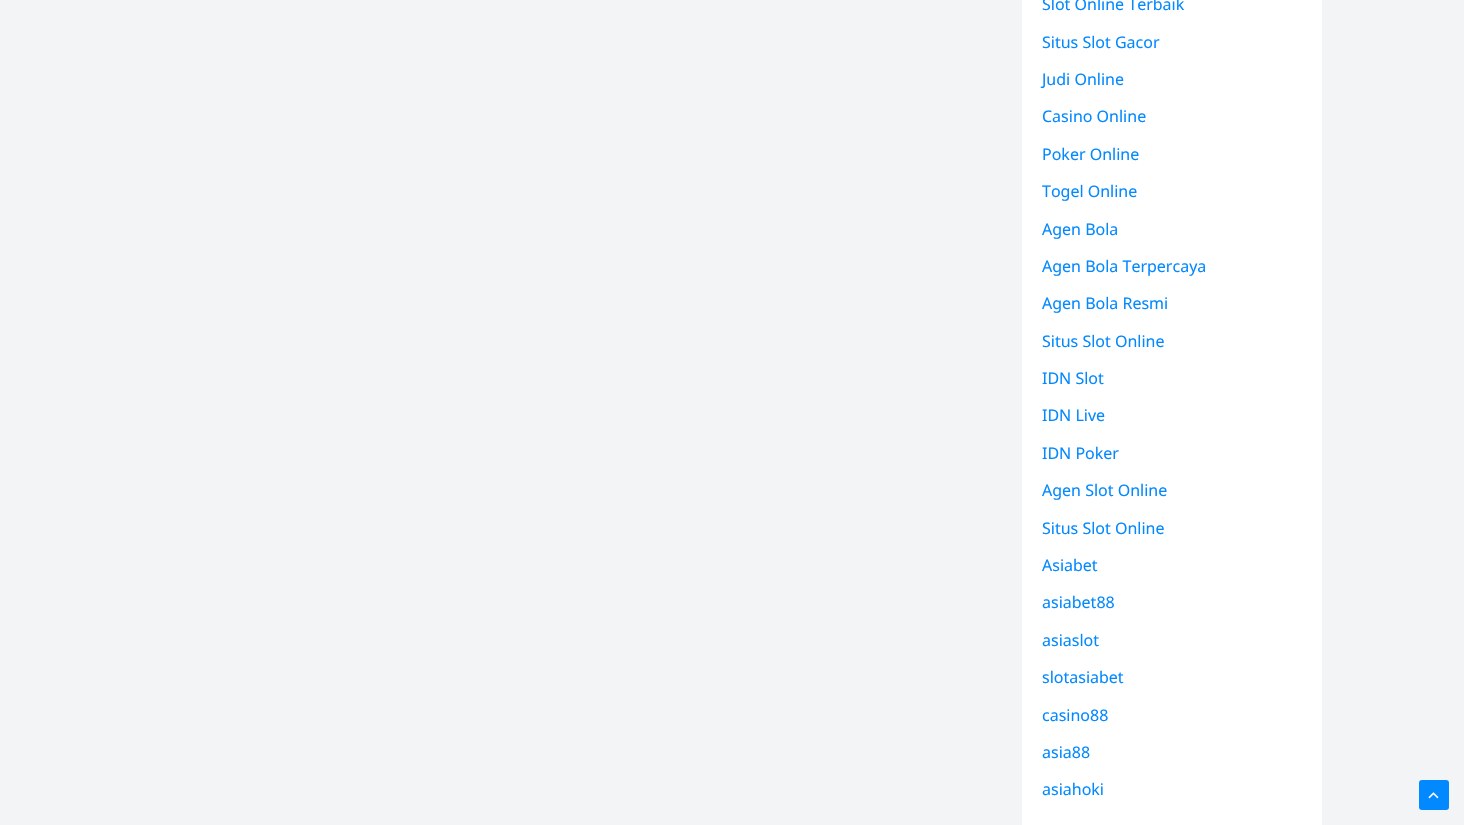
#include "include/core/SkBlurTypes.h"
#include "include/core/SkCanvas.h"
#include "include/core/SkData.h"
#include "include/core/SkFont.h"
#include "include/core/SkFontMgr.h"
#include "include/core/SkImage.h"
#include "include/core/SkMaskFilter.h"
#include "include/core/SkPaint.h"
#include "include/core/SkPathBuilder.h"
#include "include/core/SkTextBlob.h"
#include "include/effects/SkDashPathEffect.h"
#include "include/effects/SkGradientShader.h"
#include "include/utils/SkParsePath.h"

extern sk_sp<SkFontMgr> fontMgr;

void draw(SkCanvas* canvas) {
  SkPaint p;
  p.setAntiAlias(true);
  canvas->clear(SkColorSetRGB(243, 244, 245));
  p.setColor(SK_ColorWHITE);
  canvas->drawRect(SkRect::MakeLTRB(1022, 0, 1322, 825), p);
  p.setColor(SkColorSetRGB(3, 137, 255));
  canvas->drawRoundRect(SkRect::MakeLTRB(1419, 780, 1449, 810), 3, 3, p);
  canvas->drawImageRect(SkImages::DeferredFromEncodedData(SkData::MakeFromFileName("images/1.png")), SkRect::MakeLTRB(1428, 792, 1439, 799), SkSamplingOptions());
  SkFont font1(fontMgr->matchFamilyStyle("Noto Sans", SkFontStyle::Normal()), 16);
  font1.setSubpixel(true);
  canvas->drawString("Slot Online Terbaik", 1042, 10, font1, p);
  canvas->drawString("Situs Slot Gacor", 1042, 48, font1, p);
  canvas->drawString("Judi Online", 1042, 85, font1, p);
  canvas->drawString("Casino Online", 1042, 122, font1, p);
  canvas->drawString("Poker Online", 1042, 160, font1, p);
  canvas->drawString("Togel Online", 1042, 197, font1, p);
  canvas->drawString("Agen Bola", 1042, 235, font1, p);
  canvas->drawString("Agen Bola Terpercaya", 1042, 272, font1, p);
  canvas->drawString("Agen Bola Resmi", 1042, 309, font1, p);
  canvas->drawString("Situs Slot Online", 1042, 347, font1, p);
  canvas->drawString("IDN Slot", 1042, 384, font1, p);
  canvas->drawString("IDN Live", 1042, 421, font1, p);
  canvas->drawString("IDN Poker", 1042, 459, font1, p);
  canvas->drawString("Agen Slot Online", 1042, 496, font1, p);
  canvas->drawString("Situs Slot Online", 1042, 534, font1, p);
  canvas->drawString("Asiabet", 1042, 571, font1, p);
  canvas->drawString("asiabet88", 1042, 608, font1, p);
  canvas->drawString("asiaslot", 1042, 646, font1, p);
  canvas->drawString("slotasiabet", 1042, 683, font1, p);
  canvas->drawString("casino88", 1042, 721, font1, p);
  canvas->drawString("asia88", 1042, 758, font1, p);
  canvas->drawString("asiahoki", 1042, 795, font1, p);
}
